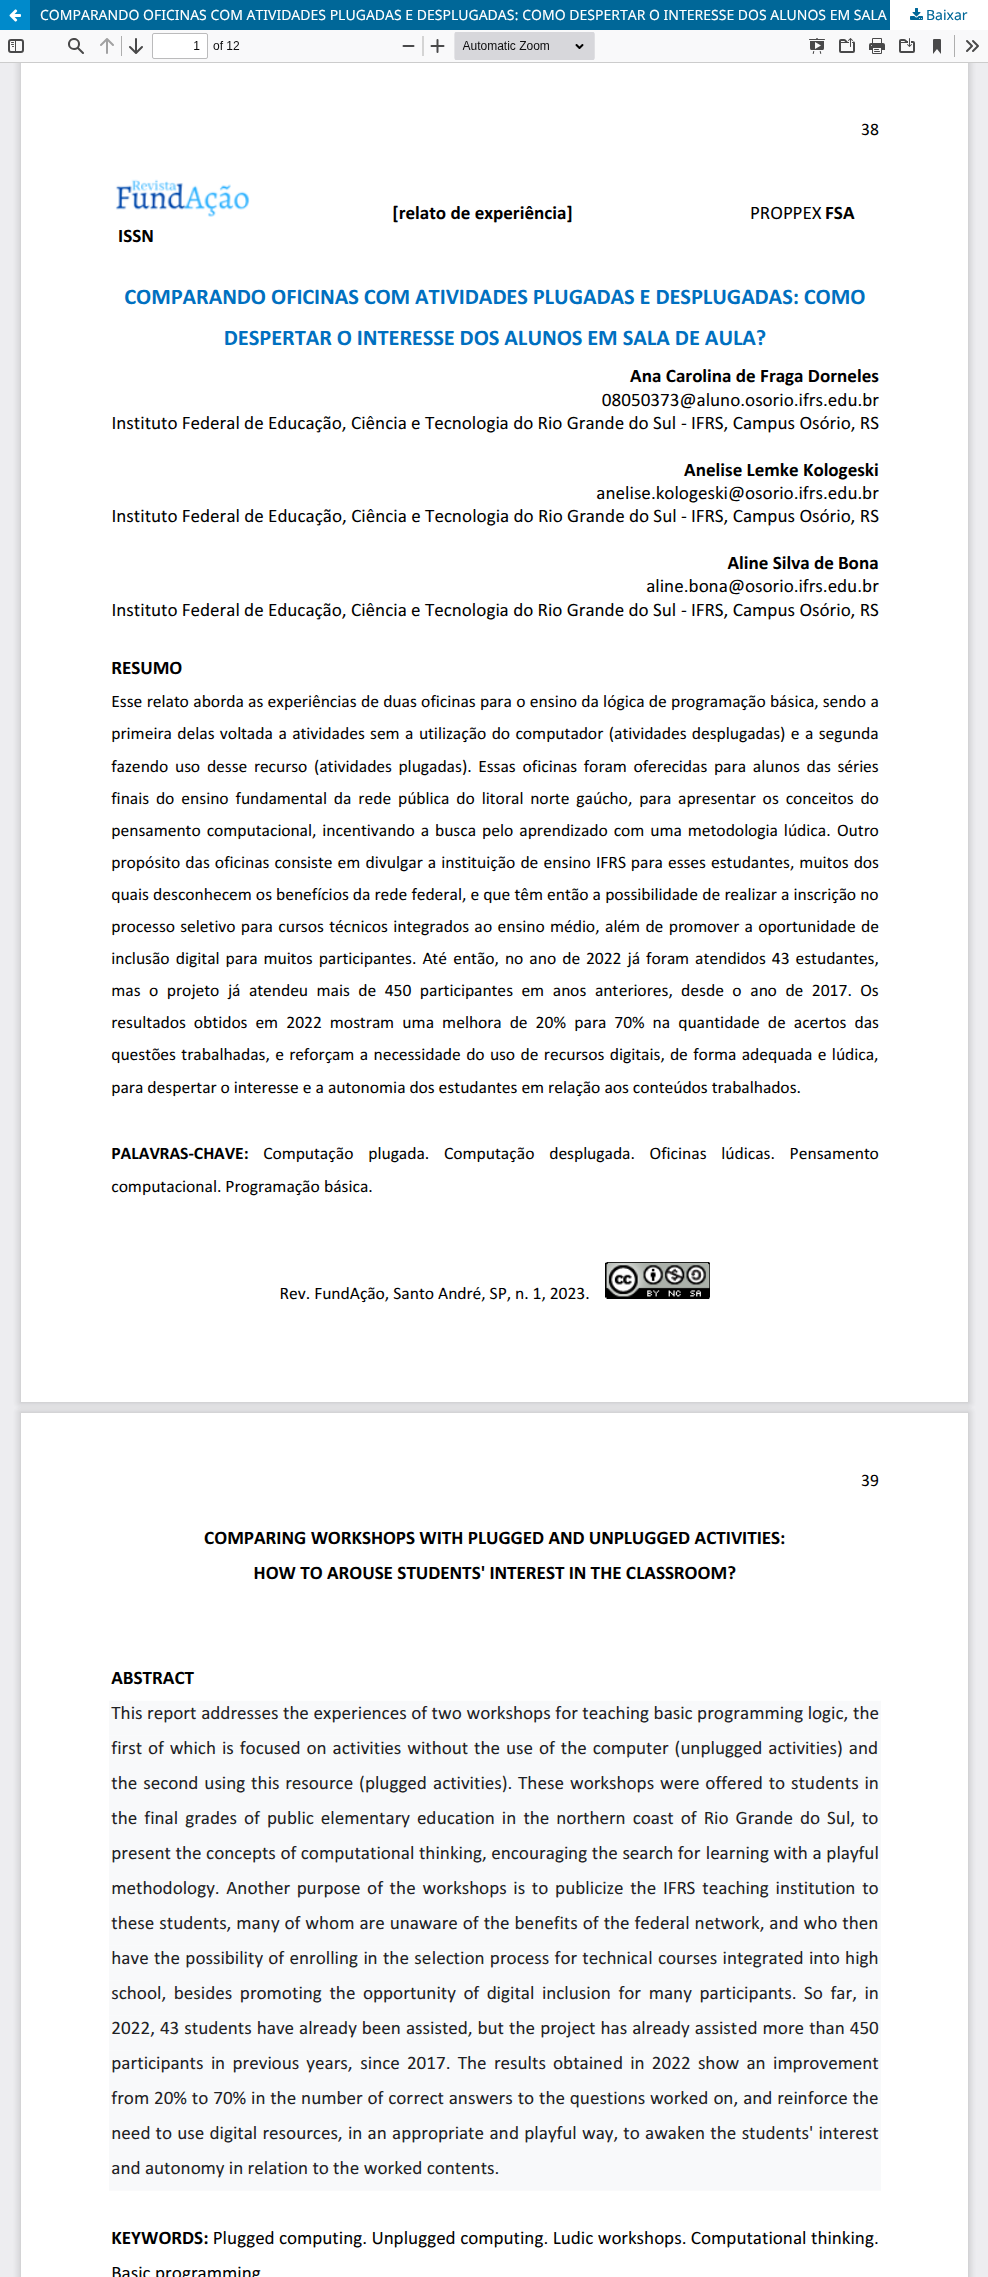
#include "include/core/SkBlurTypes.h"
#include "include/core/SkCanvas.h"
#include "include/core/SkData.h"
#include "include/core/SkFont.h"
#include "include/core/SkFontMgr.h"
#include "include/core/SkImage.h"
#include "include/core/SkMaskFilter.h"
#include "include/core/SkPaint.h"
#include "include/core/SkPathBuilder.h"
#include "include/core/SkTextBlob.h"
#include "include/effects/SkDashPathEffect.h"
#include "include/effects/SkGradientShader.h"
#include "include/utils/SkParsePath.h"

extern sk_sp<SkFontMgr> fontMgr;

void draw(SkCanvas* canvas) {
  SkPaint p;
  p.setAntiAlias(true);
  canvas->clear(SK_ColorWHITE);
  p.setColor(SkColorSetRGB(0, 103, 152));
  canvas->drawRect(SkRect::MakeLTRB(30, 0, 890, 30), p);
  p.setColor(SkColorSetRGB(0, 138, 203));
  canvas->drawRect(SkRect::MakeLTRB(0, 0, 30, 30), p);
  canvas->drawImageRect(SkImages::DeferredFromEncodedData(SkData::MakeFromFileName("images/1.png")), SkRect::MakeLTRB(9, 9, 21, 22), SkSamplingOptions());
  canvas->drawImageRect(SkImages::DeferredFromEncodedData(SkData::MakeFromFileName("images/2.png")), SkRect::MakeLTRB(910, 8, 923, 20), SkSamplingOptions());
  canvas->drawImageRect(SkImages::DeferredFromEncodedData(SkData::MakeFromFileName("images/3.png")), SkRect::MakeLTRB(0, 30, 988, 2277), SkSamplingOptions());
  SkFont font1(fontMgr->matchFamilyStyle("Noto Sans", SkFontStyle::Normal()), 14);
  font1.setSubpixel(true);
  p.setColor(SK_ColorWHITE);
  canvas->drawString("COMPARANDO OFICINAS COM ATIVIDADES PLUGADAS E DESPLUGADAS: COMO DESPERTAR O INTERESSE DOS ALUNOS EM SALA", 40, 20, font1, p);
  p.setColor(SkColorSetRGB(0, 103, 152));
  canvas->drawString("Baixar", 926, 20, font1, p);
}
